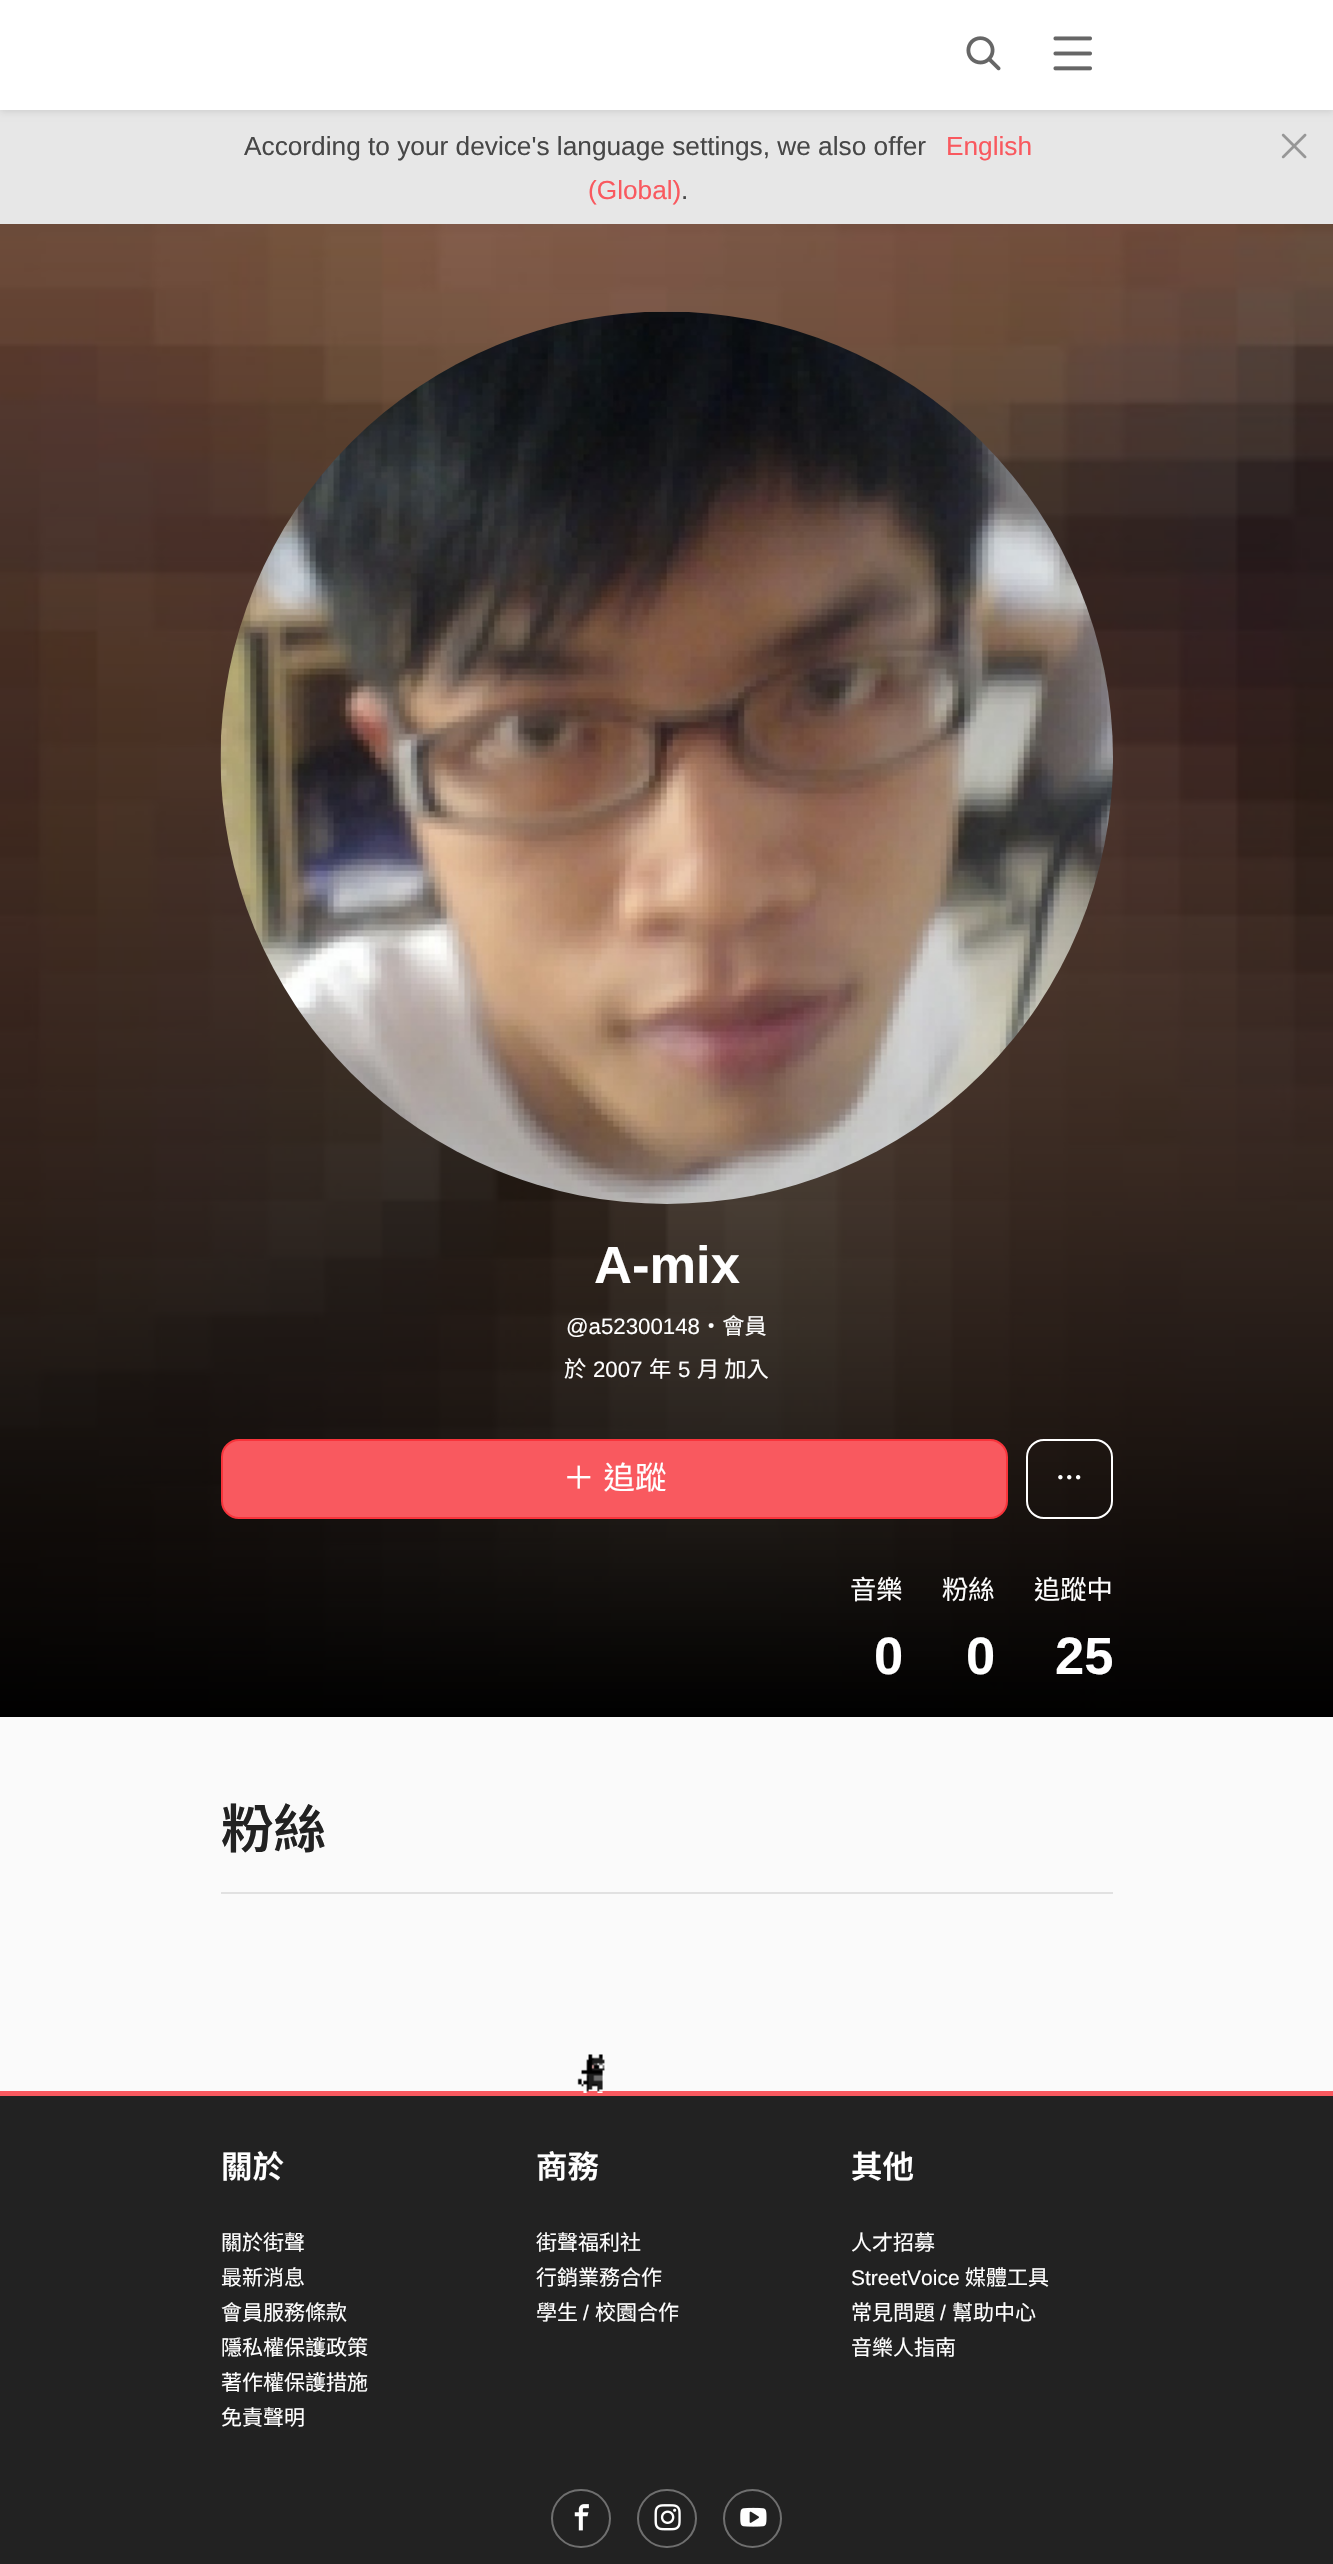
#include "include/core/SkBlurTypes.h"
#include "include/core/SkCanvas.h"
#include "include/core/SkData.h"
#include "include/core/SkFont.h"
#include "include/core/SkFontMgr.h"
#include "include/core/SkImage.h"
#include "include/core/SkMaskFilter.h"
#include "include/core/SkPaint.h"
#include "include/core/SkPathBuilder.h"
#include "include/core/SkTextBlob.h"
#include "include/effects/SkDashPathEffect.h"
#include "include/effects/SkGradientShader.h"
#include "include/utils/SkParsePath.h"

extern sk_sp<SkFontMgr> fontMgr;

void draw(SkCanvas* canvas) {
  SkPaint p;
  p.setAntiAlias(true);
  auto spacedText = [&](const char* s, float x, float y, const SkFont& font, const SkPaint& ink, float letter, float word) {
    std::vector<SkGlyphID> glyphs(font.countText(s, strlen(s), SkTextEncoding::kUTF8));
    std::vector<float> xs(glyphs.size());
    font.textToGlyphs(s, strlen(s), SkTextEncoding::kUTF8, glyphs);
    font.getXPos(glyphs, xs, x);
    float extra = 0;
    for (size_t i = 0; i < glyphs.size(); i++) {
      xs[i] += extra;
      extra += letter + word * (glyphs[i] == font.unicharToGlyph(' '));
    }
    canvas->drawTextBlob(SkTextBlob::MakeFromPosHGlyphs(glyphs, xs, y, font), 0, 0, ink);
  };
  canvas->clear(SkColorSetRGB(250, 250, 250));
  p.setColor(SkColorSetRGB(231, 231, 231));
  canvas->drawRect(SkRect::MakeLTRB(0, 110, 1333, 224), p);
  canvas->drawImageRect(SkImages::DeferredFromEncodedData(SkData::MakeFromFileName("images/1.png")), SkRect::MakeLTRB(1281, 133, 1307, 159), SkSamplingOptions());
  p.setColor(SkColorSetARGB(26, 0, 0, 0));
  p.setMaskFilter(SkMaskFilter::MakeBlur(kNormal_SkBlurStyle, 3.5f));
  canvas->drawRect(SkRect::MakeLTRB(0, 2, 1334, 112), p);
  p.setMaskFilter(nullptr);
  p.setColor(SK_ColorWHITE);
  canvas->drawRect(SkRect::MakeLTRB(0, 0, 1333, 110), p);
  canvas->drawImageRect(SkImages::DeferredFromEncodedData(SkData::MakeFromFileName("images/2.png")), SkRect::MakeLTRB(966, 36, 1001, 71), SkSamplingOptions());
  canvas->drawImageRect(SkImages::DeferredFromEncodedData(SkData::MakeFromFileName("images/3.png")), SkRect::MakeLTRB(1053, 36, 1092, 71), SkSamplingOptions());
  canvas->drawImageRect(SkImages::DeferredFromEncodedData(SkData::MakeFromFileName("images/4.png")), SkRect::MakeLTRB(0, 224, 1333, 1708), SkSamplingOptions());
  {
    const SkColor colors[] = {SkColorSetARGB(0, 0, 0, 0), SK_ColorBLACK};
    const float stops[] = {0, 1};
    const SkPoint ends[] = {{667, 114}, {667, 1717}};
    p.setShader(SkGradientShader::MakeLinear(ends, colors, stops, 2, SkTileMode::kClamp));
    p.setAlpha(255);
  }
  canvas->drawRect(SkRect::MakeLTRB(0, 224, 1333, 1717), p);
  canvas->drawImageRect(SkImages::DeferredFromEncodedData(SkData::MakeFromFileName("images/5.png")), SkRect::MakeLTRB(220, 311, 1113, 1204), SkSamplingOptions());
  p.setShader(nullptr);
  p.setColor(SkColorSetRGB(249, 89, 95));
  canvas->drawRoundRect(SkRect::MakeLTRB(222, 1440, 1007, 1518), 17, 17, p);
  p.setStyle(SkPaint::kStroke_Style);
  p.setStrokeWidth(2);
  p.setColor(SkColorSetRGB(248, 52, 59));
  canvas->drawRoundRect(SkRect::MakeLTRB(222, 1440, 1007, 1518), 17, 17, p);
  p.setColor(SK_ColorWHITE);
  canvas->drawRoundRect(SkRect::MakeLTRB(1027, 1440, 1112, 1518), 17, 17, p);
  canvas->drawImageRect(SkImages::DeferredFromEncodedData(SkData::MakeFromFileName("images/6.png")), SkRect::MakeLTRB(1058, 1475, 1081, 1480), SkSamplingOptions());
  p.setStyle(SkPaint::kFill_Style);
  p.setColor(SkColorSetRGB(225, 225, 225));
  canvas->drawRect(SkRect::MakeLTRB(221, 1892, 1113, 1894), p);
  p.setColor(SkColorSetRGB(34, 34, 34));
  canvas->drawRect(SkRect::MakeLTRB(0, 2096, 1333, 2564), p);
  p.setColor(SkColorSetRGB(249, 89, 95));
  canvas->drawRect(SkRect::MakeLTRB(0, 2091, 1333, 2096), p);
  canvas->drawImageRect(SkImages::DeferredFromEncodedData(SkData::MakeFromFileName("images/7.png")), SkRect::MakeLTRB(577, 2054, 607, 2093), SkSamplingOptions());
  p.setStyle(SkPaint::kStroke_Style);
  p.setColor(SkColorSetRGB(111, 111, 111));
  canvas->drawRoundRect(SkRect::MakeLTRB(552, 2490, 610, 2547), 28.5f, 28.5f, p);
  canvas->drawImageRect(SkImages::DeferredFromEncodedData(SkData::MakeFromFileName("images/8.png")), SkRect::MakeLTRB(574, 2504, 589, 2531), SkSamplingOptions());
  canvas->drawRoundRect(SkRect::MakeLTRB(638, 2490, 696, 2547), 28.5f, 28.5f, p);
  canvas->drawImageRect(SkImages::DeferredFromEncodedData(SkData::MakeFromFileName("images/9.png")), SkRect::MakeLTRB(654, 2504, 681, 2531), SkSamplingOptions());
  canvas->drawCircle(752.5f, 2518.5f, 28.5f, p);
  canvas->drawImageRect(SkImages::DeferredFromEncodedData(SkData::MakeFromFileName("images/10.png")), SkRect::MakeLTRB(740, 2507, 767, 2527), SkSamplingOptions());
  SkFont font1(fontMgr->matchFamilyStyle("Liberation Sans", SkFontStyle::Normal()), 26.25f);
  font1.setSubpixel(true);
  p.setStyle(SkPaint::kFill_Style);
  p.setColor(SkColorSetRGB(71, 71, 71));
  canvas->drawString("According to your device's language settings, we also offer", 244, 155, font1, p);
  p.setColor(SkColorSetRGB(249, 89, 95));
  canvas->drawString("English", 946, 155, font1, p);
  canvas->drawString("(Global)", 588, 199, font1, p);
  p.setColor(SkColorSetRGB(71, 71, 71));
  canvas->drawString(".", 681, 199, font1, p);
  SkFont font2(fontMgr->matchFamilyStyle("Liberation Sans", SkFontStyle::Bold()), 52.5f);
  font2.setSubpixel(true);
  p.setColor(SK_ColorWHITE);
  canvas->drawString("A-mix", 594, 1283, font2, p);
  SkFont font3(fontMgr->matchFamilyStyle("Liberation Sans", SkFontStyle::Normal()), 22.25f);
  font3.setSubpixel(true);
  canvas->drawString("@a52300148", 566, 1334, font3, p);
  SkFont font4(fontMgr->matchFamilyStyle("Noto Sans TC", SkFontStyle::Normal()), 22.25f);
  font4.setSubpixel(true);
  canvas->drawString("・會員", 700, 1334, font4, p);
  canvas->drawString("於", 564, 1377, font4, p);
  canvas->drawString("2007", 593, 1377, font3, p);
  canvas->drawString("年", 649, 1377, font4, p);
  canvas->drawString("5", 678, 1377, font3, p);
  canvas->drawString("月 加入", 697, 1377, font4, p);
  SkFont font5(fontMgr->matchFamilyStyle("Noto Sans TC", SkFontStyle::Normal()), 31.5f);
  font5.setSubpixel(true);
  spacedText("＋ 追蹤", 563, 1489, font5, p, 0, 2);
  SkFont font6(fontMgr->matchFamilyStyle("Noto Sans TC", SkFontStyle::Normal()), 26.25f);
  font6.setSubpixel(true);
  canvas->drawString("音樂", 850, 1599, font6, p);
  canvas->drawString("0", 874, 1674, font2, p);
  canvas->drawString("粉絲", 942, 1599, font6, p);
  canvas->drawString("0", 966, 1674, font2, p);
  canvas->drawString("追蹤中", 1034, 1599, font6, p);
  canvas->drawString("25", 1055, 1674, font2, p);
  SkFont font7(fontMgr->matchFamilyStyle("Noto Sans TC", SkFontStyle(600, SkFontStyle::kNormal_Width, SkFontStyle::kUpright_Slant)), 52.5f);
  font7.setSubpixel(true);
  p.setColor(SkColorSetRGB(34, 34, 34));
  canvas->drawString("粉絲", 221, 1848, font7, p);
  SkFont font8(fontMgr->matchFamilyStyle("Noto Sans TC", SkFontStyle(600, SkFontStyle::kNormal_Width, SkFontStyle::kUpright_Slant)), 31.5f);
  font8.setSubpixel(true);
  p.setColor(SK_ColorWHITE);
  canvas->drawString("關於", 221, 2178, font8, p);
  SkFont font9(fontMgr->matchFamilyStyle("Noto Sans TC", SkFontStyle::Normal()), 21);
  font9.setSubpixel(true);
  canvas->drawString("關於街聲", 221, 2250, font9, p);
  canvas->drawString("最新消息", 221, 2285, font9, p);
  canvas->drawString("會員服務條款", 221, 2320, font9, p);
  canvas->drawString("隱私權保護政策", 221, 2355, font9, p);
  canvas->drawString("著作權保護措施", 221, 2390, font9, p);
  canvas->drawString("免責聲明", 221, 2425, font9, p);
  canvas->drawString("商務", 536, 2178, font8, p);
  canvas->drawString("街聲福利社", 536, 2250, font9, p);
  canvas->drawString("行銷業務合作", 536, 2285, font9, p);
  canvas->drawString("學生", 536, 2320, font9, p);
  SkFont font10(fontMgr->matchFamilyStyle("Liberation Sans", SkFontStyle::Normal()), 21);
  font10.setSubpixel(true);
  canvas->drawString("/", 583, 2320, font10, p);
  canvas->drawString("校園合作", 595, 2320, font9, p);
  canvas->drawString("其他", 851, 2178, font8, p);
  canvas->drawString("人才招募", 851, 2250, font9, p);
  canvas->drawString("StreetVoice", 851, 2285, font10, p);
  canvas->drawString("媒體工具", 965, 2285, font9, p);
  canvas->drawString("常見問題", 851, 2320, font9, p);
  canvas->drawString("/", 940, 2320, font10, p);
  canvas->drawString("幫助中心", 952, 2320, font9, p);
  canvas->drawString("音樂人指南", 851, 2355, font9, p);
}
